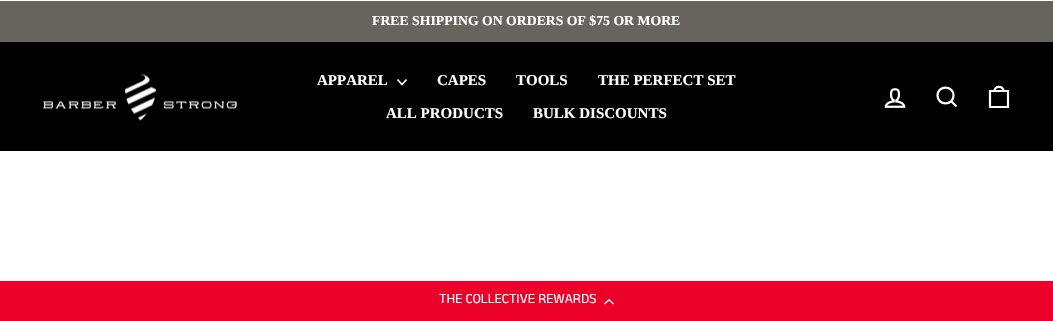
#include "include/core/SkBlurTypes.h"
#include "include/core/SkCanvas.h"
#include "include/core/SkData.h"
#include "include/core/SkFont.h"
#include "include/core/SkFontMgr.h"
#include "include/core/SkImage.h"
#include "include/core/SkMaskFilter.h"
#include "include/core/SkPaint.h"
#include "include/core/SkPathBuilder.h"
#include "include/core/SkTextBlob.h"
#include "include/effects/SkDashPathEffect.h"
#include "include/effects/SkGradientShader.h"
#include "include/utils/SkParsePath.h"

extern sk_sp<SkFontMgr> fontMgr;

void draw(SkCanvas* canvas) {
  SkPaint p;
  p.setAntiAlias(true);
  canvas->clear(SK_ColorWHITE);
  p.setColor(SkColorSetRGB(103, 99, 93));
  canvas->drawRect(SkRect::MakeLTRB(0, 1, 1053, 42), p);
  p.setColor(SK_ColorBLACK);
  canvas->drawRect(SkRect::MakeLTRB(0, 42, 1053, 151), p);
  canvas->drawImageRect(SkImages::DeferredFromEncodedData(SkData::MakeFromFileName("images/1.png")), SkRect::MakeLTRB(43, 73, 237, 121), SkSamplingOptions());
  p.setStyle(SkPaint::kStroke_Style);
  p.setStrokeWidth(1.8f);
  p.setColor(SK_ColorWHITE);
  canvas->drawPath(SkPathBuilder().moveTo(397.5f, 79.5f).lineTo(402, 84.5f).lineTo(406.5f, 79.5f).detach(), p);
  canvas->drawImageRect(SkImages::DeferredFromEncodedData(SkData::MakeFromFileName("images/2.png")), SkRect::MakeLTRB(884, 88, 906, 108), SkSamplingOptions());
  p.setStrokeWidth(2.2f);
  canvas->drawPath(SkPathBuilder().moveTo(953.5f, 95.5f).cubicTo(953.5f, 106, 937.5f, 106, 937.5f, 95.5f).cubicTo(937.5f, 85, 953.5f, 85, 953.5f, 95.5f).close().moveTo(956.5f, 106.5f).lineTo(951.5f, 101.5f).detach(), p);
  canvas->drawPath(SkPathBuilder().moveTo(990, 91).lineTo(1008, 91).lineTo(1008, 107).lineTo(990, 107).close().moveTo(994.5f, 91).cubicTo(994.5f, 85.5f, 1003.5f, 85.5f, 1003.5f, 91).detach(), p);
  p.setStyle(SkPaint::kFill_Style);
  p.setColor(SkColorSetRGB(234, 0, 41));
  canvas->drawRect(SkRect::MakeLTRB(0, 281, 1053, 321), p);
  canvas->drawImageRect(SkImages::DeferredFromEncodedData(SkData::MakeFromFileName("images/3.png")), SkRect::MakeLTRB(604, 299, 614, 305), SkSamplingOptions());
  SkFont font1(fontMgr->matchFamilyStyle("Liberation Serif", SkFontStyle::Bold()), 13.75f);
  font1.setSubpixel(true);
  p.setColor(SK_ColorWHITE);
  canvas->drawString("FREE SHIPPING ON ORDERS OF $75 OR MORE", 372, 25, font1, p);
  SkFont font2(fontMgr->matchFamilyStyle("Liberation Serif", SkFontStyle::Bold()), 15);
  font2.setSubpixel(true);
  canvas->drawString("APPAREL", 317, 85, font2, p);
  canvas->drawString("CAPES", 437, 85, font2, p);
  canvas->drawString("TOOLS", 516, 85, font2, p);
  canvas->drawString("THE PERFECT SET", 598, 85, font2, p);
  canvas->drawString("ALL PRODUCTS", 386, 118, font2, p);
  canvas->drawString("BULK DISCOUNTS", 533, 118, font2, p);
  SkFont font3(fontMgr->matchFamilyStyle("Anek Odia", SkFontStyle(500, SkFontStyle::kNormal_Width, SkFontStyle::kUpright_Slant)), 14);
  font3.setSubpixel(true);
  canvas->drawString("THE COLLECTIVE REWARDS", 439, 303, font3, p);
}
